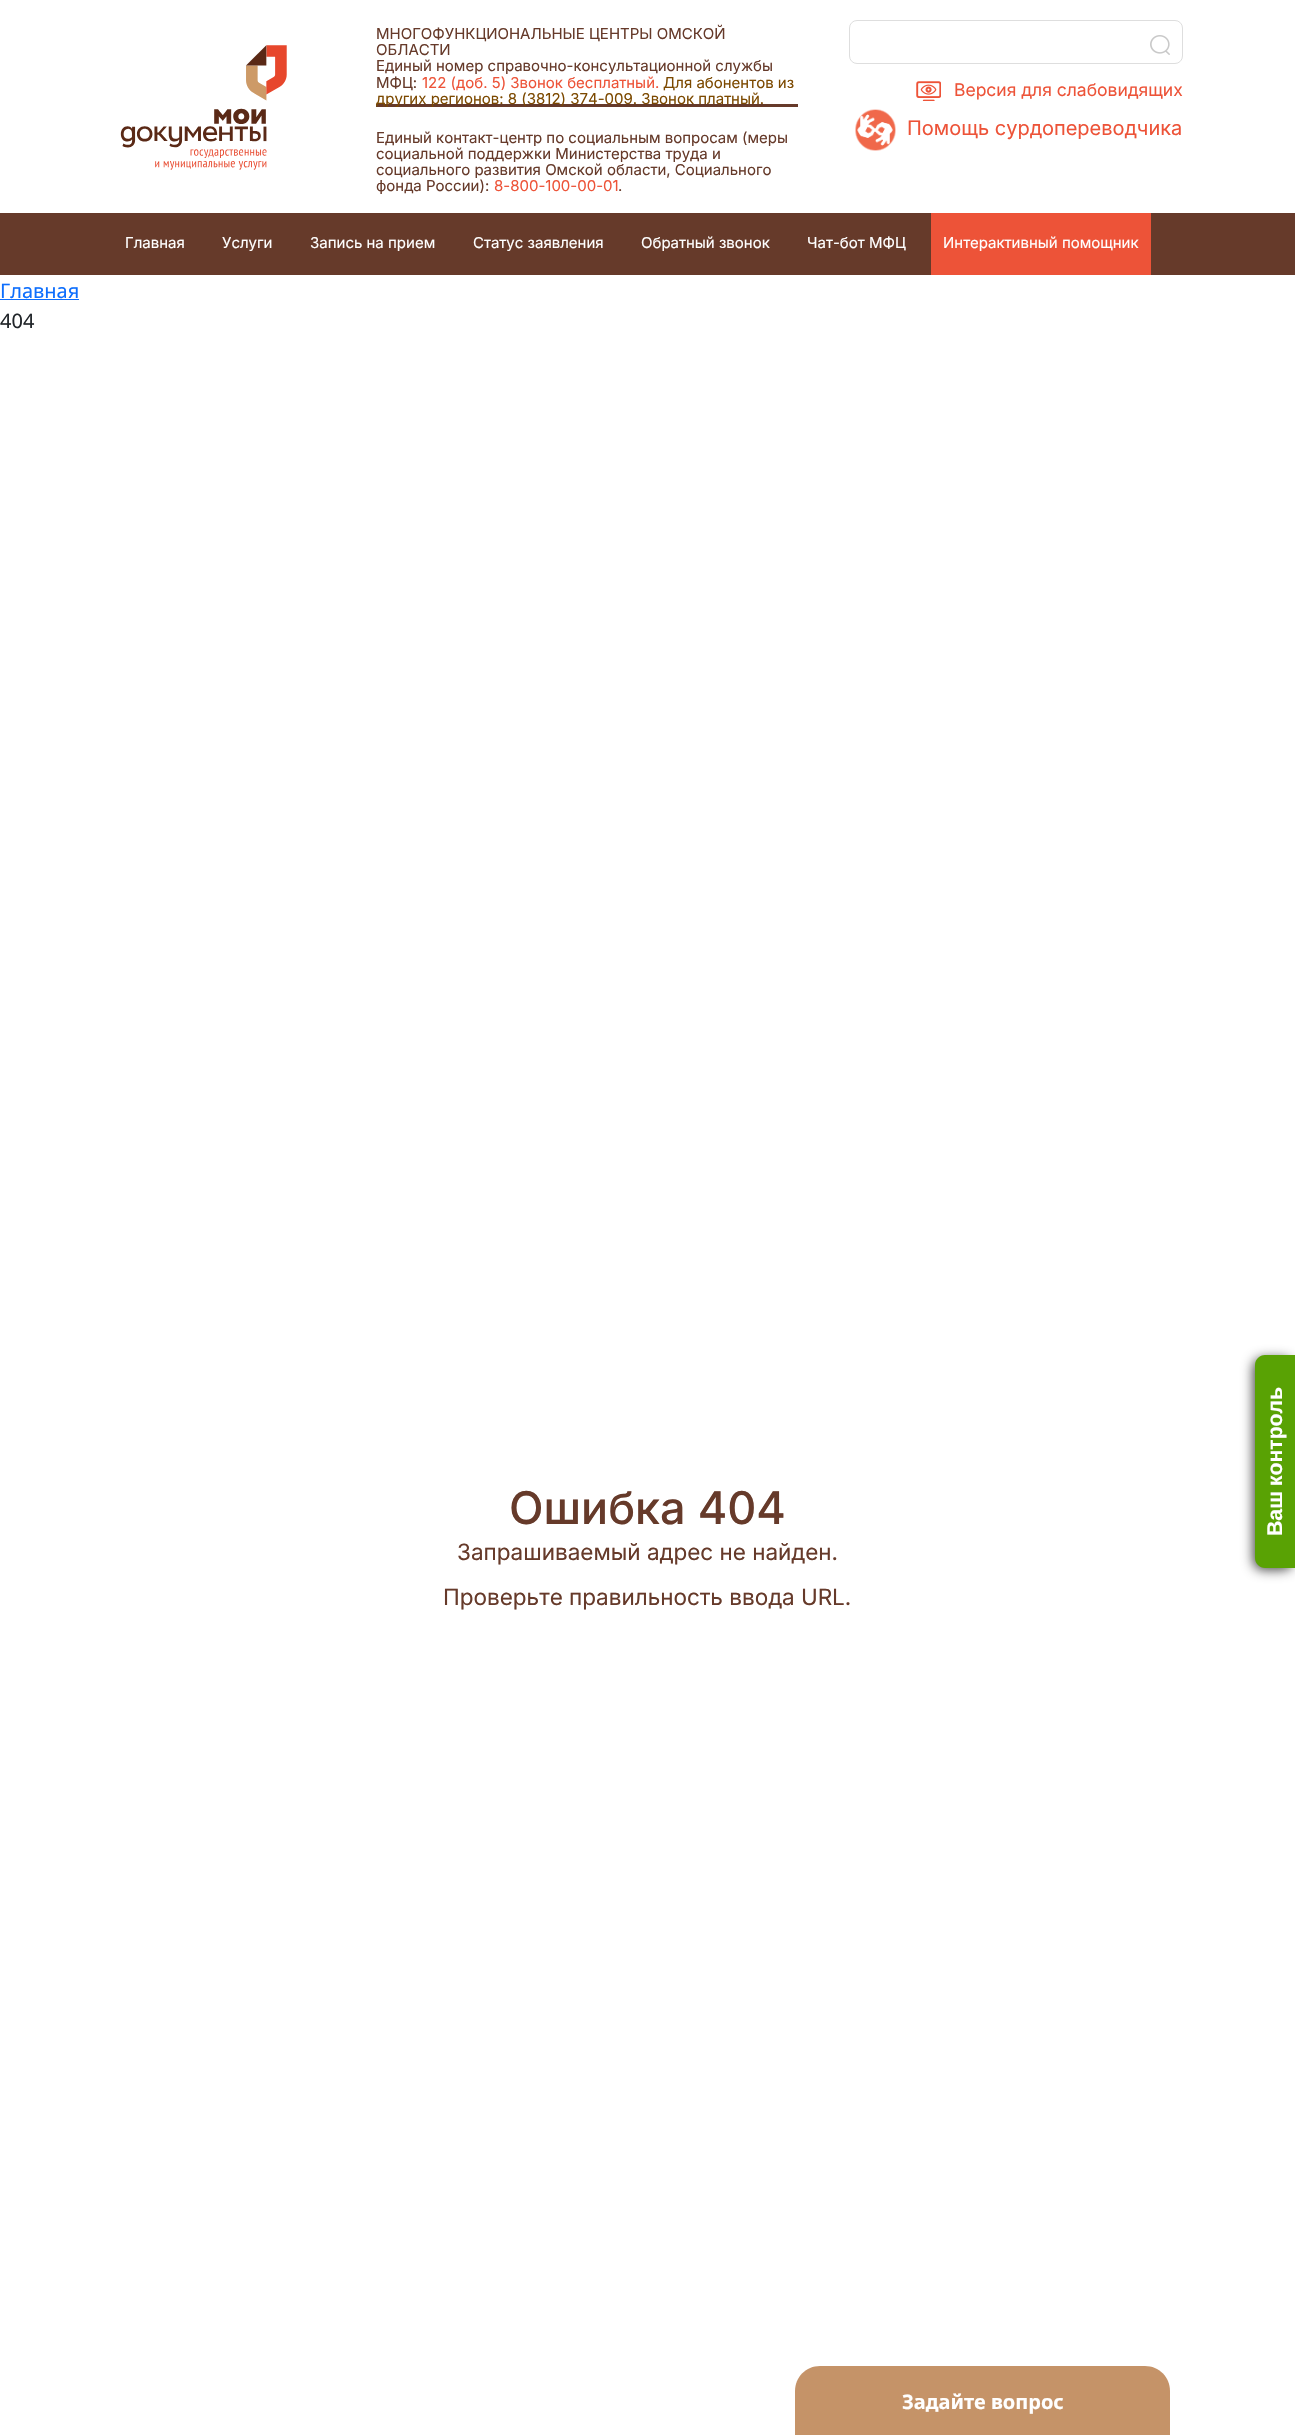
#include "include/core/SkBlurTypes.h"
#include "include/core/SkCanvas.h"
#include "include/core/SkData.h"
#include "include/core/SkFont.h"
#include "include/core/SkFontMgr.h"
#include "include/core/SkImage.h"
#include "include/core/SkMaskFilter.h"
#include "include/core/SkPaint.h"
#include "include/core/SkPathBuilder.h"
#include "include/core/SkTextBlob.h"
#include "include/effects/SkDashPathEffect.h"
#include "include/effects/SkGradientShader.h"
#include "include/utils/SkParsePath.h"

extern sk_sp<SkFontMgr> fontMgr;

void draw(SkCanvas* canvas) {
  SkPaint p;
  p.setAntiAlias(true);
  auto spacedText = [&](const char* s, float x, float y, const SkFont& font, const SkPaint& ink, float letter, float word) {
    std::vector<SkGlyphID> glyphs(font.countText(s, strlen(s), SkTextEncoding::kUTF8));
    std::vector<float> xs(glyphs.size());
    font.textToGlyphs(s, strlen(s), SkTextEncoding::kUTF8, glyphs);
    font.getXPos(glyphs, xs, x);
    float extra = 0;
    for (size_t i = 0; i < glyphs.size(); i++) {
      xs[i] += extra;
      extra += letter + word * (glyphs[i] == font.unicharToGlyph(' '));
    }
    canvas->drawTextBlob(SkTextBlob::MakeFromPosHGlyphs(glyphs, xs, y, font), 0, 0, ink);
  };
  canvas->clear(SK_ColorWHITE);
  canvas->drawImageRect(SkImages::DeferredFromEncodedData(SkData::MakeFromFileName("images/1.png")), SkRect::MakeLTRB(120, 45, 287, 170), SkSamplingOptions());
  p.setColor(SkColorSetRGB(102, 58, 42));
  canvas->drawRect(SkRect::MakeLTRB(376, 104, 798, 107), p);
  p.setStyle(SkPaint::kStroke_Style);
  p.setStrokeWidth(1);
  p.setColor(SkColorSetRGB(222, 222, 222));
  canvas->drawRoundRect(SkRect::MakeLTRB(849.5f, 20.5f, 1182.5f, 63.5f), 7.5f, 7.5f, p);
  canvas->drawImageRect(SkImages::DeferredFromEncodedData(SkData::MakeFromFileName("images/2.png")), SkRect::MakeLTRB(1150, 35, 1170, 55), SkSamplingOptions());
  canvas->drawImageRect(SkImages::DeferredFromEncodedData(SkData::MakeFromFileName("images/3.png")), SkRect::MakeLTRB(916, 81, 941, 101), SkSamplingOptions());
  canvas->drawImageRect(SkImages::DeferredFromEncodedData(SkData::MakeFromFileName("images/4.png")), SkRect::MakeLTRB(855, 109, 896, 151), SkSamplingOptions());
  p.setStyle(SkPaint::kFill_Style);
  p.setColor(SkColorSetRGB(102, 58, 42));
  canvas->drawRect(SkRect::MakeLTRB(0, 213, 1295, 275), p);
  p.setColor(SkColorSetRGB(237, 83, 56));
  canvas->drawRect(SkRect::MakeLTRB(931, 213, 1151, 275), p);
  p.setColor(SkColorSetRGB(13, 110, 253));
  canvas->drawRect(SkRect::MakeLTRB(0, 299, 79, 300), p);
  p.setColor(SkColorSetARGB(184, 0, 0, 0));
  p.setMaskFilter(SkMaskFilter::MakeBlur(kNormal_SkBlurStyle, 6));
  canvas->drawRoundRect(SkRect::MakeLTRB(1253, 1358, 1293, 1570), 10, 10, p);
  p.setMaskFilter(nullptr);
  p.setColor(SkColorSetRGB(89, 162, 4));
  canvas->drawPath(SkPathBuilder().moveTo(1265, 1355).lineTo(1295, 1355).lineTo(1295, 1568).lineTo(1265, 1568).cubicTo(1259.5f, 1568, 1255, 1563.5f, 1255, 1558).lineTo(1255, 1365).cubicTo(1255, 1359.5f, 1259.5f, 1355, 1265, 1355).close().detach(), p);
  p.setColor(SkColorSetRGB(197, 147, 104));
  canvas->drawPath(SkPathBuilder().moveTo(820, 2366).lineTo(1145, 2366).cubicTo(1159, 2366, 1170, 2377, 1170, 2391).lineTo(1170, 2435).lineTo(795, 2435).lineTo(795, 2391).cubicTo(795, 2377, 806, 2366, 820, 2366).close().detach(), p);
  SkFont font1(fontMgr->matchFamilyStyle("Inter", SkFontStyle::Normal()), 15);
  font1.setSubpixel(true);
  p.setColor(SkColorSetRGB(102, 58, 42));
  canvas->drawString("МНОГОФУНКЦИОНАЛЬНЫE ЦЕНТРЫ ОМСКОЙ", 376, 39, font1, p);
  canvas->drawString("ОБЛАСТИ", 376, 55, font1, p);
  canvas->drawString("Единый номер справочно-консультационной службы", 376, 71, font1, p);
  canvas->drawString("МФЦ:", 376, 88, font1, p);
  p.setColor(SkColorSetRGB(237, 83, 56));
  canvas->drawString("122 (доб. 5) Звонок бесплатный.", 422, 88, font1, p);
  p.setColor(SkColorSetRGB(124, 73, 0));
  canvas->drawString("Для абонентов из", 663, 88, font1, p);
  canvas->drawString("других регионов: 8 (3812) 374-009. Звонок платный.", 376, 104, font1, p);
  p.setColor(SkColorSetRGB(102, 58, 42));
  canvas->drawString("Единый контакт-центр по социальным вопросам (меры", 376, 143, font1, p);
  canvas->drawString("социальной поддержки Министерства труда и", 376, 159, font1, p);
  canvas->drawString("социального развития Омской области, Социального", 376, 175, font1, p);
  canvas->drawString("фонда России):", 376, 191, font1, p);
  p.setColor(SkColorSetRGB(237, 83, 56));
  canvas->drawString("8-800-100-00-01", 494, 191, font1, p);
  p.setColor(SkColorSetRGB(102, 58, 42));
  canvas->drawString(".", 618, 191, font1, p);
  SkFont font2(fontMgr->matchFamilyStyle("Inter", SkFontStyle::Normal()), 17.5f);
  font2.setSubpixel(true);
  p.setColor(SkColorSetRGB(237, 83, 56));
  canvas->drawString("Версия для слабовидящих", 954, 96, font2, p);
  SkFont font3(fontMgr->matchFamilyStyle("Inter", SkFontStyle::Normal()), 20);
  font3.setSubpixel(true);
  canvas->drawString("Помощь сурдопереводчика", 907, 135, font3, p);
  p.setColor(SK_ColorWHITE);
  canvas->drawString("Главная", 125, 248, font1, p);
  canvas->drawString("Услуги", 222, 248, font1, p);
  canvas->drawString("Запись на прием", 310, 248, font1, p);
  canvas->drawString("Статус заявления", 473, 248, font1, p);
  canvas->drawString("Обратный звонок", 641, 248, font1, p);
  canvas->drawString("Чат-бот МФЦ", 807, 248, font1, p);
  canvas->drawString("Интерактивный помощник", 943, 248, font1, p);
  SkFont font4(fontMgr->matchFamilyStyle("Noto Sans", SkFontStyle::Normal()), 20);
  font4.setSubpixel(true);
  p.setColor(SkColorSetRGB(13, 110, 253));
  canvas->drawString("Главная", 0, 298, font4, p);
  p.setColor(SkColorSetRGB(33, 37, 41));
  canvas->drawString("404", 0, 328, font4, p);
  SkFont font5(fontMgr->matchFamilyStyle("Liberation Sans", SkFontStyle::Bold()), 21.25f);
  font5.setSubpixel(true);
  p.setColor(SK_ColorWHITE);
  canvas->save();
  canvas->rotate(-90, 1282, 1536);
  spacedText("Ваш контроль", 1282, 1536, font5, p, 0, -1);
  canvas->restore();
  SkFont font6(fontMgr->matchFamilyStyle("Inter", SkFontStyle(500, SkFontStyle::kNormal_Width, SkFontStyle::kUpright_Slant)), 45);
  font6.setSubpixel(true);
  p.setColor(SkColorSetRGB(102, 58, 42));
  canvas->drawString("Ошибка 404", 509, 1524, font6, p);
  SkFont font7(fontMgr->matchFamilyStyle("Inter", SkFontStyle::Normal()), 22.5f);
  font7.setSubpixel(true);
  canvas->drawString("Запрашиваемый адрес не найден.", 457, 1560, font7, p);
  canvas->drawString("Проверьте правильность ввода URL.", 443, 1605, font7, p);
  SkFont font8(fontMgr->matchFamilyStyle("Noto Sans", SkFontStyle::Bold()), 20);
  font8.setSubpixel(true);
  p.setColor(SK_ColorWHITE);
  canvas->drawString("Задайте вопрос", 902, 2409, font8, p);
}
